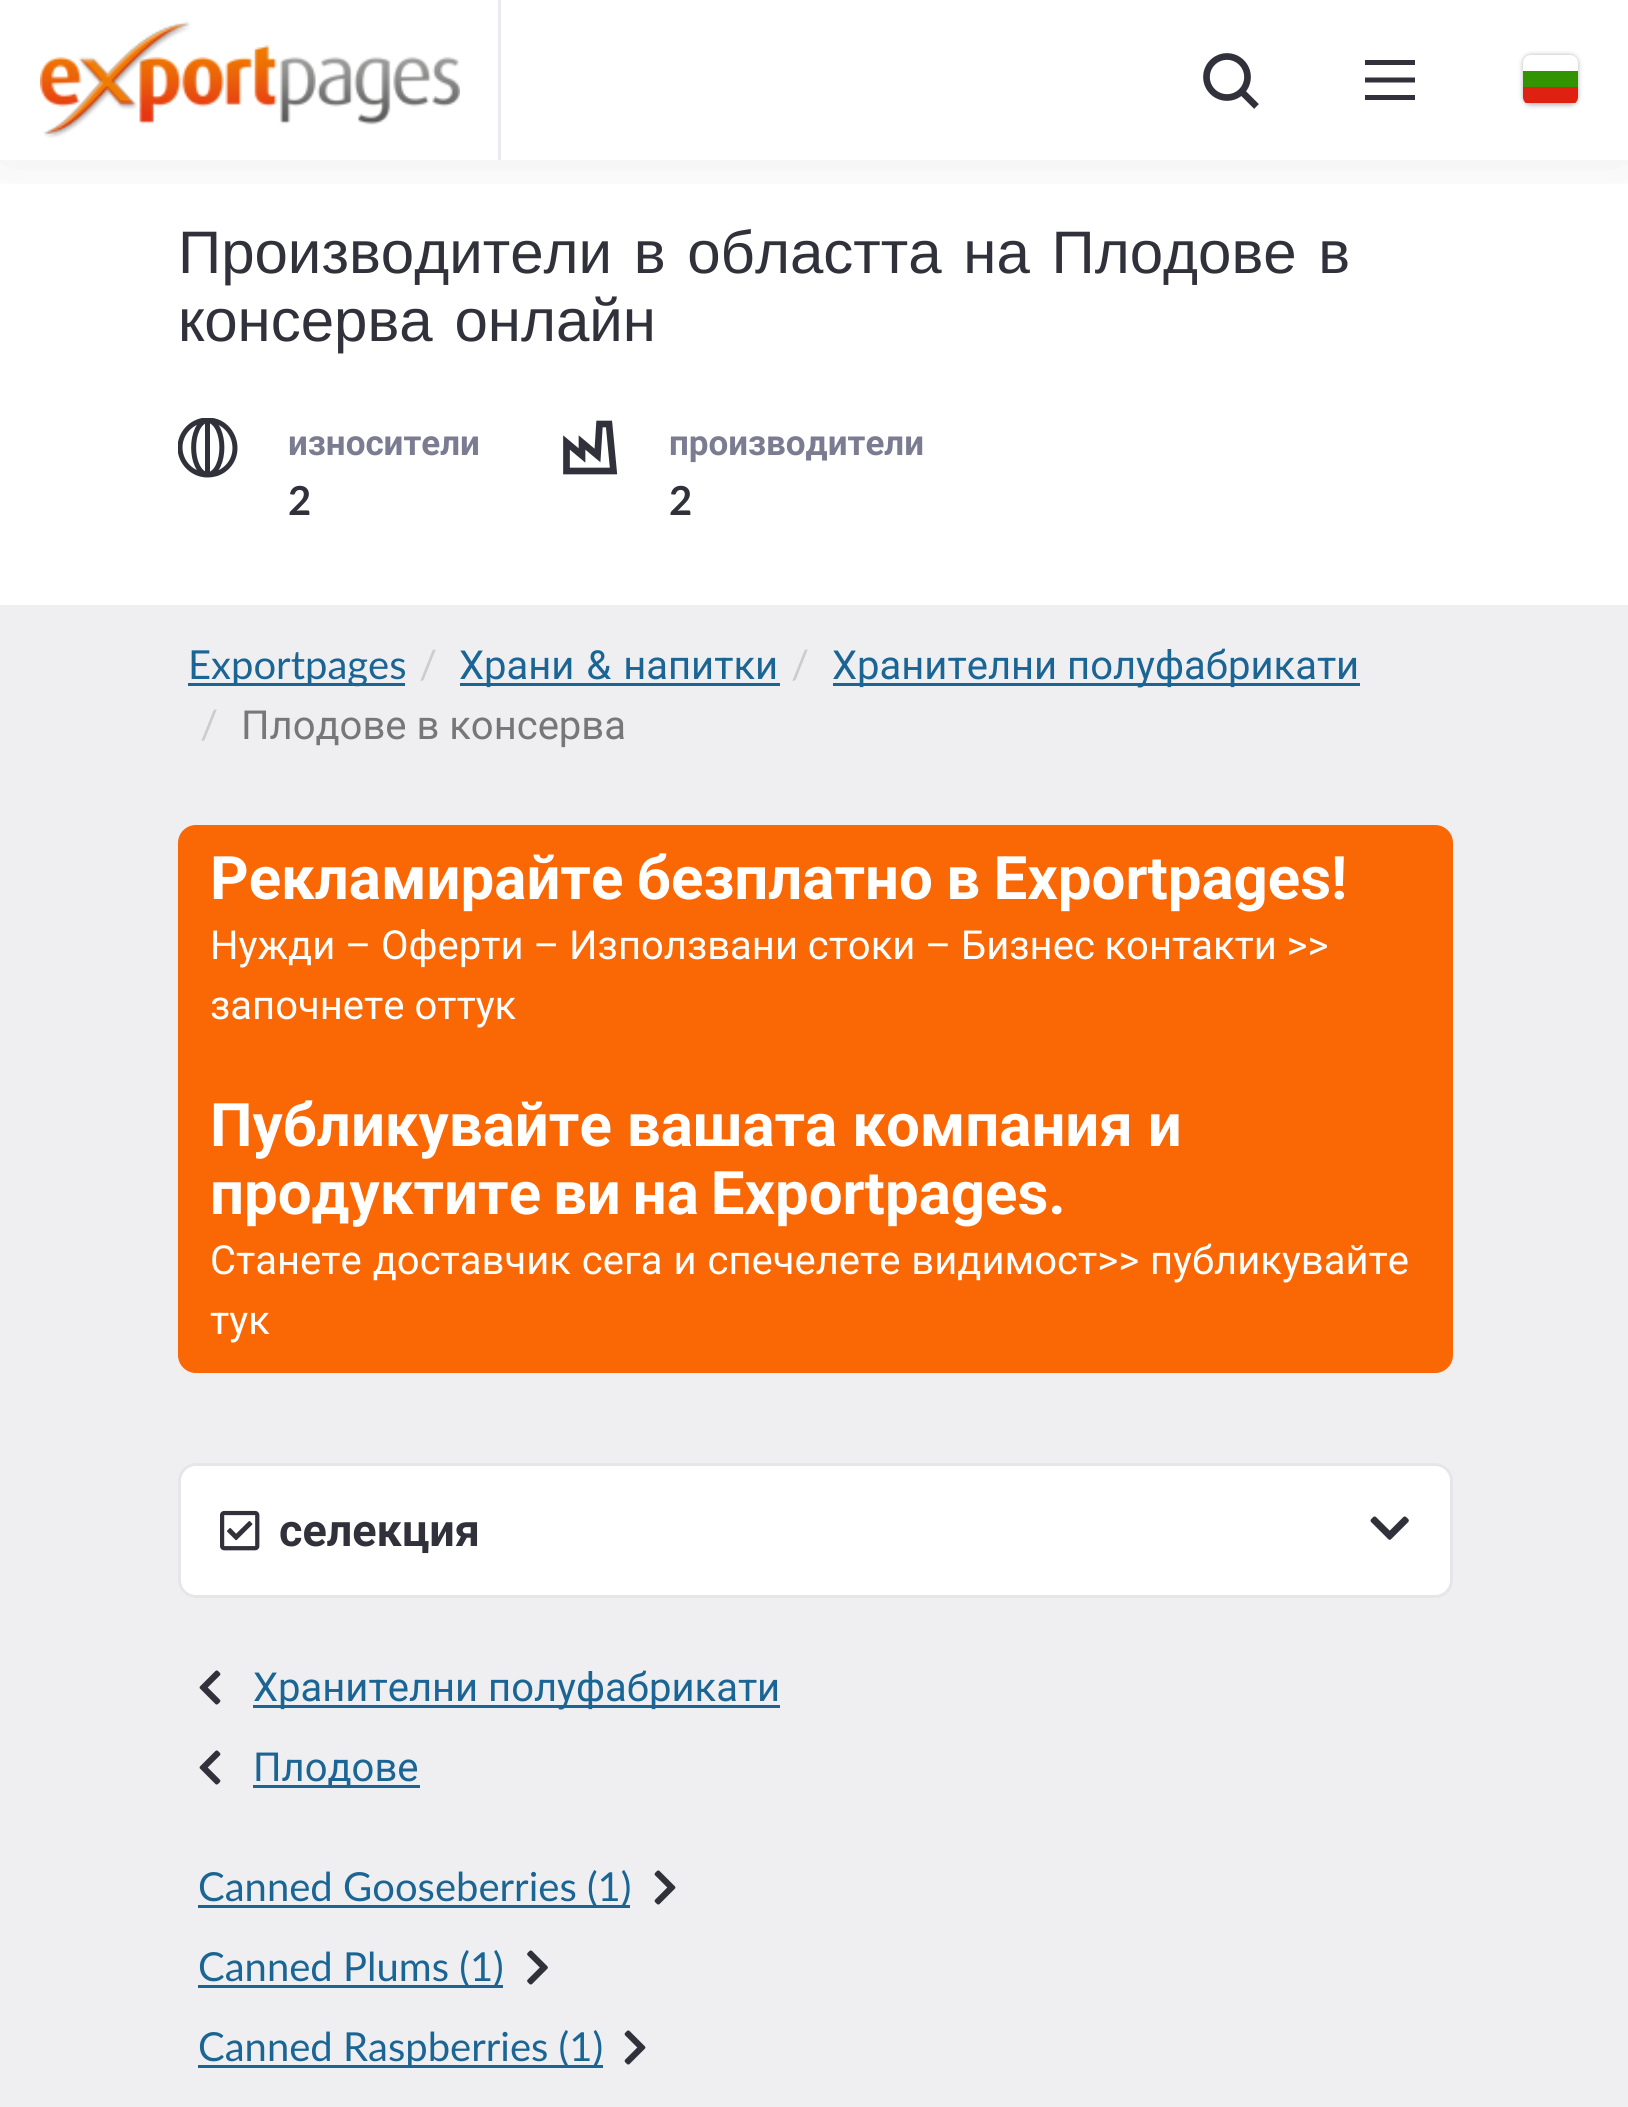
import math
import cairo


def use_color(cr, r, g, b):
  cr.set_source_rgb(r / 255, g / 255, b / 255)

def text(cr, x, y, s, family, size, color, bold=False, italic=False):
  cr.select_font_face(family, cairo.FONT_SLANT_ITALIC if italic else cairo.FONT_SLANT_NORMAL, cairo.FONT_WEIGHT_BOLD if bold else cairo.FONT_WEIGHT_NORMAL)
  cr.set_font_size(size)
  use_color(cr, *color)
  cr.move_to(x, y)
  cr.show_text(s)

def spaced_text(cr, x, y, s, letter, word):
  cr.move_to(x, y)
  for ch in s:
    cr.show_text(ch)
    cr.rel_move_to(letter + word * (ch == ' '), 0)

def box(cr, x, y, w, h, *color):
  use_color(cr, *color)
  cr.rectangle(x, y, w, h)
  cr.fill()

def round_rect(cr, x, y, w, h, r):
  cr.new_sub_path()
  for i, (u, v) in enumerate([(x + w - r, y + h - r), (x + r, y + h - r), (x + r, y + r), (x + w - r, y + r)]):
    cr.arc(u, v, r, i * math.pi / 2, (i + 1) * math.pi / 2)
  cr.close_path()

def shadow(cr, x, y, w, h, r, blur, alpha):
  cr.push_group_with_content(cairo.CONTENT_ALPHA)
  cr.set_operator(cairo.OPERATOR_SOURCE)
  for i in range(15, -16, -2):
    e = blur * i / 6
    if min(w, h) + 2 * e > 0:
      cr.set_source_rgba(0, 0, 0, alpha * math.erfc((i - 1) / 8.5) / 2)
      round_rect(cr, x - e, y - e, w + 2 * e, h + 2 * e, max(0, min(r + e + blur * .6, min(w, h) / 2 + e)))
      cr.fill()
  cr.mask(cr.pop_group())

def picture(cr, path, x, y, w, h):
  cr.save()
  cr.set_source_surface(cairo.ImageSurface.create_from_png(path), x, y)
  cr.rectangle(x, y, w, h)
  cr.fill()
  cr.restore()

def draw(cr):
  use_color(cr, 255, 255, 255)
  cr.paint()
  cr.save()
  cr.rectangle(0, 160, 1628, 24)
  cr.clip()
  use_color(cr, 0, 0, 0)
  shadow(cr, 0, -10, 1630, 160, 0, 40, 0.1)
  cr.restore()
  picture(cr, "img_01.png", 40, 21, 420, 117)
  box(cr, 498, 0, 3, 160, 235, 235, 239)
  cr.arc(1227, 77, 20.5, 0, 2 * math.pi)
  use_color(cr, 49, 49, 59)
  cr.set_line_width(6.7)
  cr.stroke()
  cr.new_path()
  cr.move_to(1242, 92)
  cr.line_to(1256.5, 106.5)
  cr.stroke()
  box(cr, 1365, 95, 50, 5, 49, 49, 59)
  cr.new_path()
  cr.move_to(1365, 80)
  cr.line_to(1415, 80)
  cr.set_line_width(5)
  cr.stroke()
  box(cr, 1365, 60, 50, 5, 49, 49, 59)
  use_color(cr, 0, 0, 0)
  shadow(cr, 1523, 55, 55, 50, 8, 2.5, 0.3)
  cr.save()
  round_rect(cr, 1523, 55, 55, 50, 8)
  cr.clip()
  box(cr, 1523, 87, 55, 16, 222, 33, 16)
  cr.restore()
  use_color(cr, 255, 255, 255)
  cr.new_path()
  cr.move_to(1531, 55)
  cr.line_to(1570, 55)
  cr.curve_to(1574.5, 55, 1578, 58.5, 1578, 63)
  cr.line_to(1578, 71)
  cr.line_to(1523, 71)
  cr.line_to(1523, 63)
  cr.curve_to(1523, 58.5, 1526.5, 55, 1531, 55)
  cr.close_path()
  cr.fill()
  box(cr, 1523, 71, 55, 16, 49, 148, 0)
  cr.save()
  cr.rectangle(178, 418, 60, 60)
  cr.clip()
  cr.new_path()
  cr.move_to(207.5, 475)
  cr.curve_to(213, 475, 218.5, 473.5, 223, 470.5)
  cr.curve_to(245.5, 455, 234, 420, 207.5, 420)
  cr.move_to(207.5, 475)
  cr.curve_to(192.5, 475, 180, 462.5, 180, 447.5)
  cr.curve_to(180, 432.5, 192.5, 420, 207.5, 420)
  cr.move_to(207.5, 475)
  cr.line_to(207.5, 420)
  cr.move_to(207.5, 475)
  cr.curve_to(189, 471, 189, 424, 207.5, 420)
  cr.move_to(208, 420)
  cr.curve_to(226.5, 424, 226.5, 471, 208, 475)
  use_color(cr, 49, 49, 59)
  cr.stroke()
  cr.restore()
  cr.new_path()
  cr.move_to(613.5, 471)
  cr.line_to(609, 424)
  cr.line_to(599.5, 424)
  cr.line_to(597.5, 455.5)
  cr.line_to(582, 442.5)
  cr.line_to(582, 455.5)
  cr.line_to(566.5, 442.5)
  cr.line_to(566.5, 471)
  cr.close_path()
  use_color(cr, 49, 49, 59)
  cr.set_line_width(6.7)
  cr.stroke()
  box(cr, 0, 605, 1628, 1502, 239, 239, 241)
  box(cr, 188, 683, 217, 3, 27, 101, 149)
  box(cr, 460, 683, 320, 3, 27, 101, 149)
  box(cr, 833, 683, 527, 3, 27, 101, 149)
  use_color(cr, 250, 103, 5)
  round_rect(cr, 179.5, 826.5, 1272, 545, 16.5)
  cr.fill_preserve()
  cr.set_line_width(3)
  cr.stroke()
  use_color(cr, 255, 255, 255)
  round_rect(cr, 178, 1463, 1275, 135, 18)
  cr.fill()
  round_rect(cr, 179.5, 1464.5, 1272, 132, 16.5)
  cr.set_source_rgba(0.192, 0.192, 0.231, 0.12)
  cr.stroke()
  picture(cr, "img_02.png", 220, 1510, 40, 41)
  picture(cr, "img_03.png", 1370, 1516, 39, 24)
  picture(cr, "img_04.png", 199, 1670, 22, 35)
  box(cr, 253, 1705, 527, 3, 27, 101, 149)
  picture(cr, "img_04.png", 199, 1750, 22, 35)
  box(cr, 253, 1785, 167, 3, 27, 101, 149)
  box(cr, 198, 1905, 432, 3, 27, 101, 149)
  picture(cr, "img_05.png", 654, 1870, 22, 35)
  box(cr, 198, 1985, 305, 3, 27, 101, 149)
  picture(cr, "img_06.png", 527, 1950, 21, 35)
  box(cr, 198, 2065, 405, 3, 27, 101, 149)
  picture(cr, "img_05.png", 624, 2030, 22, 35)
  cr.select_font_face("Liberation Sans")
  cr.set_font_size(60)
  use_color(cr, 49, 49, 59)
  spaced_text(cr, 178, 273, "Производители в областта на Плодове в", 0, 5)
  spaced_text(cr, 178, 341, "консерва онлайн", 0, 5)
  text(cr, 288, 455, "износители", "Roboto", 35, (123, 123, 146), bold=True)
  text(cr, 288, 515, "2", "Lato", 40, (49, 49, 59), bold=True)
  text(cr, 669, 455, "производители", "Roboto", 35, (123, 123, 146), bold=True)
  text(cr, 669, 515, "2", "Lato", 40, (49, 49, 59), bold=True)
  text(cr, 188, 679, "Exportpages", "Lato", 40, (27, 101, 149))
  text(cr, 419, 679, "/", "Lato", 40, (204, 204, 204))
  cr.select_font_face("Roboto")
  use_color(cr, 27, 101, 149)
  spaced_text(cr, 459, 679, "Храни & напитки", 0, 2)
  text(cr, 791, 679, "/", "Lato", 40, (204, 204, 204))
  text(cr, 832, 679, "Хранителни полуфабрикати", "Roboto", 40, (27, 101, 149))
  text(cr, 200, 739, "/", "Lato", 40, (204, 204, 204))
  text(cr, 241, 739, "Плодове в консерва", "Roboto", 40, (119, 119, 119))
  cr.select_font_face("Roboto", cairo.FONT_SLANT_NORMAL, cairo.FONT_WEIGHT_BOLD)
  cr.set_font_size(60)
  use_color(cr, 255, 255, 255)
  spaced_text(cr, 210, 899, "Рекламирайте безплатно в Exportpages!", 0, -1.5)
  cr.select_font_face("Roboto")
  cr.set_font_size(40)
  spaced_text(cr, 210, 959, "Нужди – Оферти – Използвани стоки – Бизнес контакти >>", 0, -0.25)
  text(cr, 210, 1019, "започнете оттук", "Roboto", 40, (255, 255, 255))
  text(cr, 210, 1146, "Публикувайте вашата компания и", "Roboto", 60, (255, 255, 255), bold=True)
  spaced_text(cr, 210, 1214, "продуктите ви на Exportpages.", 0, -3)
  cr.select_font_face("Roboto")
  cr.set_font_size(40)
  spaced_text(cr, 210, 1274, "Станете доставчик сега и спечелете видимост>> публикувайте", 0, 1)
  text(cr, 210, 1334, "тук", "Roboto", 40, (255, 255, 255))
  text(cr, 279, 1546, "селекция", "Roboto", 45, (49, 49, 59), bold=True)
  text(cr, 253, 1701, "Хранителни полуфабрикати", "Roboto", 40, (27, 101, 149))
  text(cr, 253, 1781, "Плодове", "Roboto", 40, (27, 101, 149))
  text(cr, 198, 1901, "Canned Gooseberries (1)", "Lato", 40, (27, 101, 149))
  text(cr, 198, 1981, "Canned Plums (1)", "Lato", 40, (27, 101, 149))
  text(cr, 198, 2061, "Canned Raspberries (1)", "Lato", 40, (27, 101, 149))


surface = cairo.ImageSurface(cairo.FORMAT_RGB24, 1628, 2107)
cr = cairo.Context(surface)
options = cairo.FontOptions()
options.set_hint_metrics(cairo.HINT_METRICS_OFF)
options.set_hint_style(cairo.HINT_STYLE_NONE)
cr.set_font_options(options)
cr.set_miter_limit(4)
draw(cr)
surface.write_to_png("out.png")
